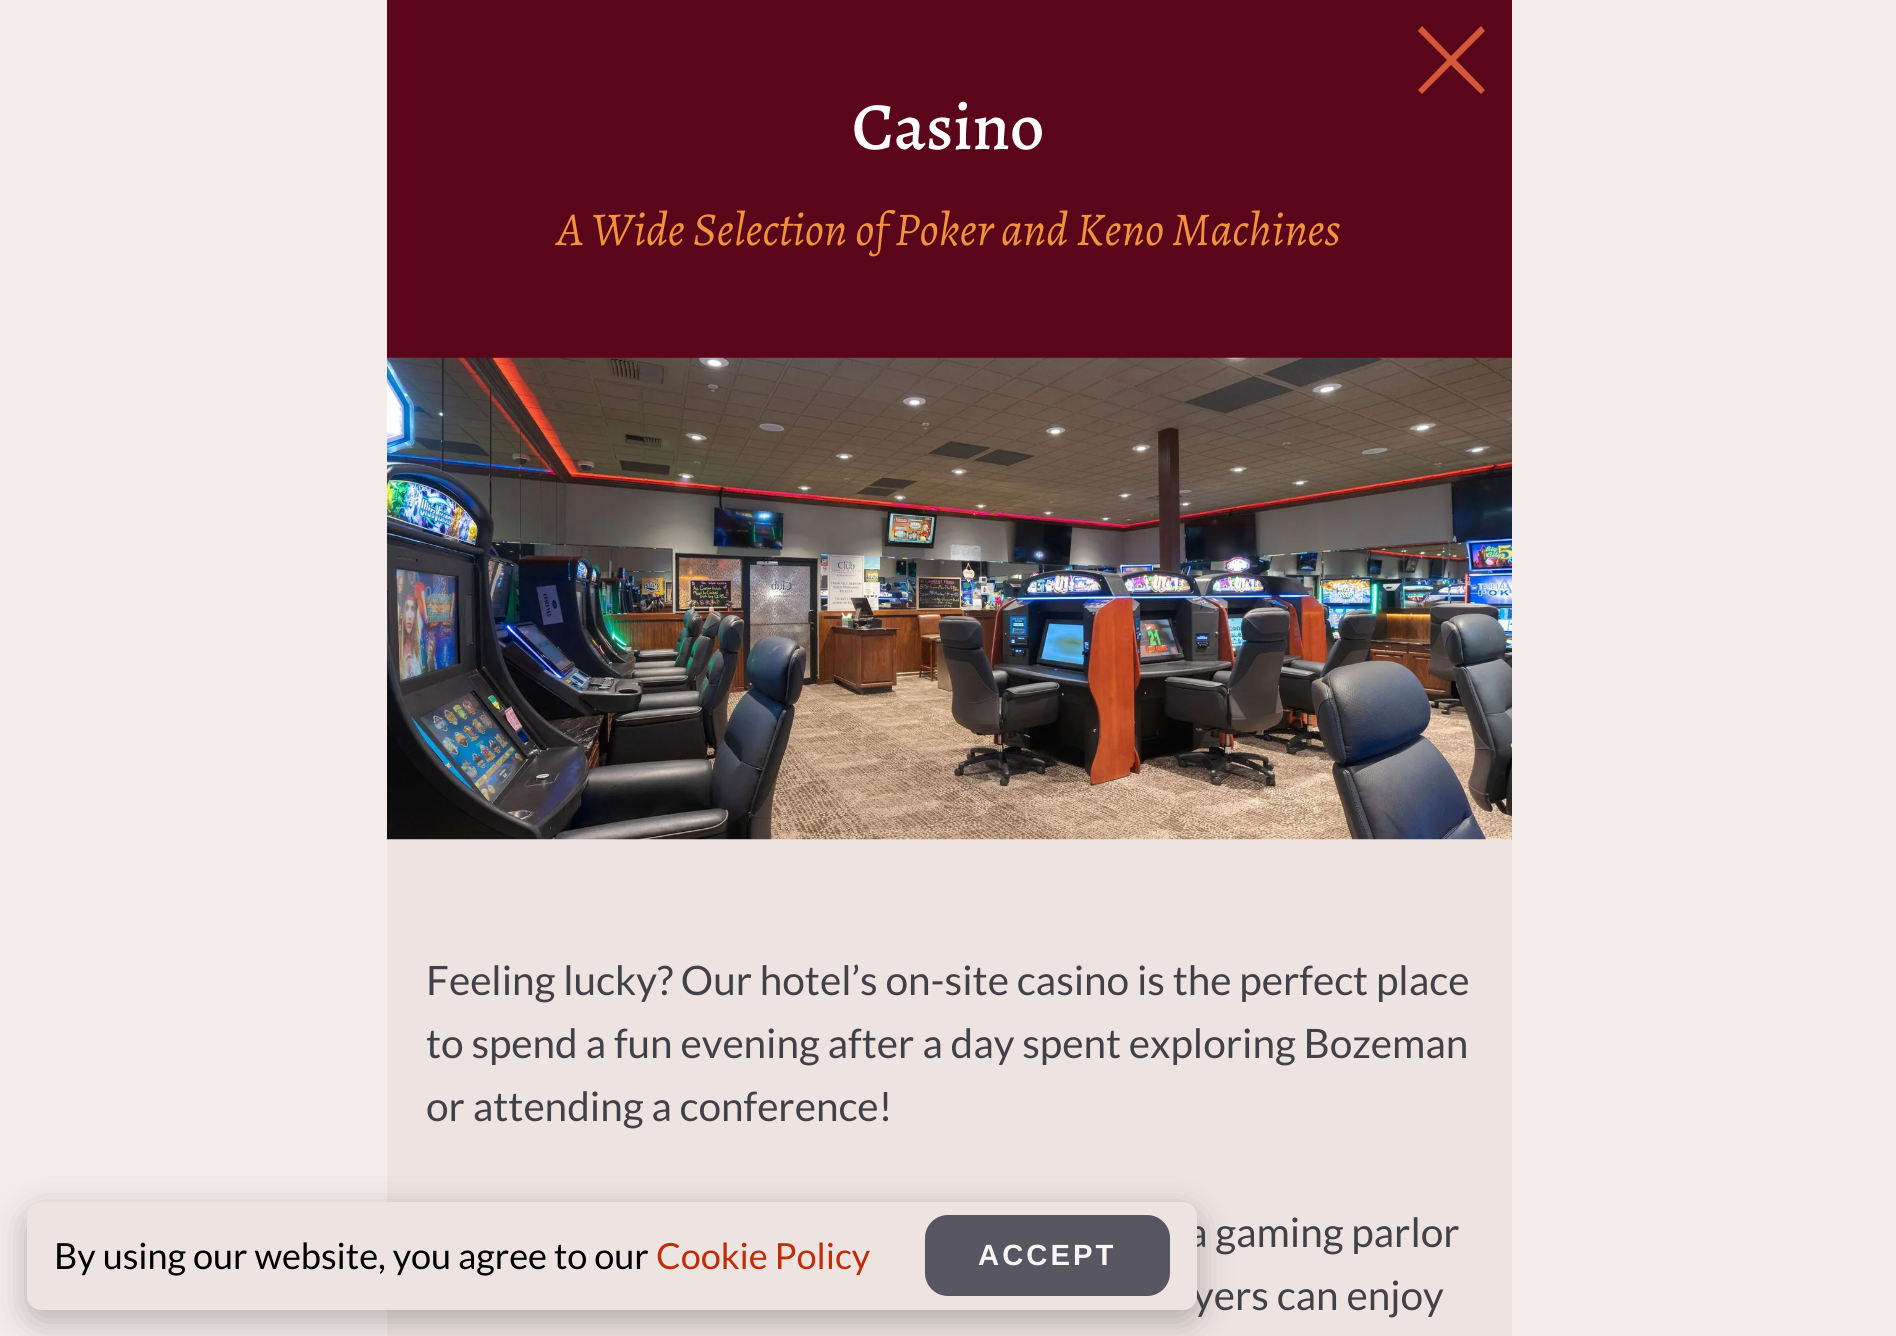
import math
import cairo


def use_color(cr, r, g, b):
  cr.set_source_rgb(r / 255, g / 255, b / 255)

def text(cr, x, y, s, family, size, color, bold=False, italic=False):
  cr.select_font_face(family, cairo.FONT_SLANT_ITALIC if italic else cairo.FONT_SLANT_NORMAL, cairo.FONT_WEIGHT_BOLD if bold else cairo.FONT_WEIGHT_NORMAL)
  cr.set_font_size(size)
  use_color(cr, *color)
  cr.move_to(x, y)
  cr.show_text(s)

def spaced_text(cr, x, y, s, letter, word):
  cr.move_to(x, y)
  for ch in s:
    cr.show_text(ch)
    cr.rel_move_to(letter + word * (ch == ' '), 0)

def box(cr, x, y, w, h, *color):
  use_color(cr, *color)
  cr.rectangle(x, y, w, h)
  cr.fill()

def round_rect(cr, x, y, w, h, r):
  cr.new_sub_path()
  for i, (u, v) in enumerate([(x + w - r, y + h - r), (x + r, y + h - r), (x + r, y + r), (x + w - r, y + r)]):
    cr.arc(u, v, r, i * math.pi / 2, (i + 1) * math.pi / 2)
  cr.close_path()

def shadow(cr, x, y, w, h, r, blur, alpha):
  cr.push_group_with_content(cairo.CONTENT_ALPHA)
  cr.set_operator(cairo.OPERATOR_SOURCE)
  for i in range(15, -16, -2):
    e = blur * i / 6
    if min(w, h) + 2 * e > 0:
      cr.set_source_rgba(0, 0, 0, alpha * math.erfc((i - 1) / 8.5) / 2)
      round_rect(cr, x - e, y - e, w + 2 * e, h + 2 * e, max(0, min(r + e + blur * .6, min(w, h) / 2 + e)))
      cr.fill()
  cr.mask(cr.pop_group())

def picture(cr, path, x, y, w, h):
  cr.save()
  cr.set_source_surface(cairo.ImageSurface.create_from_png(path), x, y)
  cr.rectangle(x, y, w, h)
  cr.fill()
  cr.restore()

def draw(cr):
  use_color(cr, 244, 236, 235)
  cr.paint()
  box(cr, 387, 0, 1125, 358, 90, 5, 25)
  use_color(cr, 211, 87, 56)
  cr.new_path()
  cr.move_to(1485, 31)
  cr.line_to(1456, 60)
  cr.line_to(1485, 90)
  cr.line_to(1481, 94)
  cr.line_to(1451, 65)
  cr.line_to(1422, 94)
  cr.line_to(1418, 90)
  cr.line_to(1447, 60)
  cr.line_to(1418, 31)
  cr.line_to(1422, 26)
  cr.line_to(1451, 56)
  cr.line_to(1481, 26)
  cr.close_path()
  cr.fill()
  box(cr, 387, 839, 1125, 497, 237, 227, 224)
  picture(cr, "img_01.png", 387, 357, 1125, 483)
  use_color(cr, 0, 0, 0)
  shadow(cr, 27, 1213, 1170, 108, 14, 17, 0.25)
  text(cr, 852, 149, "Casino", "Alegreya Medium", 67.5, (255, 255, 255))
  text(cr, 557, 245, "A Wide Selection of Poker and Keno Machines", "Alegreya", 47.25, (240, 147, 58), italic=True)
  text(cr, 426, 995, "Feeling lucky? Our hotel’s on-site casino is the perfect place", "Lato", 40.5, (66, 65, 72))
  text(cr, 426, 1058, "to spend a fun evening after a day spent exploring Bozeman", "Lato", 40.5, (66, 65, 72))
  text(cr, 426, 1121, "or attending a conference!", "Lato", 40.5, (66, 65, 72))
  text(cr, 1187, 1247, "a gaming parlor", "Lato", 40.5, (66, 65, 72))
  text(cr, 1193, 1310, "yers can enjoy", "Lato", 40.5, (66, 65, 72))
  use_color(cr, 237, 227, 224)
  round_rect(cr, 27, 1202, 1170, 108, 14)
  cr.fill()
  text(cr, 54, 1269, "By using our website, you agree to our", "Lato", 36, (0, 0, 0))
  text(cr, 656, 1269, "Cookie Policy", "Lato", 36, (193, 43, 6))
  use_color(cr, 88, 86, 97)
  round_rect(cr, 925, 1215, 245, 81, 23)
  cr.fill()
  cr.select_font_face("Liberation Sans", cairo.FONT_SLANT_NORMAL, cairo.FONT_WEIGHT_BOLD)
  cr.set_font_size(29.25)
  use_color(cr, 250, 246, 245)
  spaced_text(cr, 978, 1265, "ACCEPT", 3, 0)


surface = cairo.ImageSurface(cairo.FORMAT_RGB24, 1896, 1336)
cr = cairo.Context(surface)
options = cairo.FontOptions()
options.set_hint_metrics(cairo.HINT_METRICS_OFF)
options.set_hint_style(cairo.HINT_STYLE_NONE)
cr.set_font_options(options)
cr.set_miter_limit(4)
draw(cr)
surface.write_to_png("out.png")
